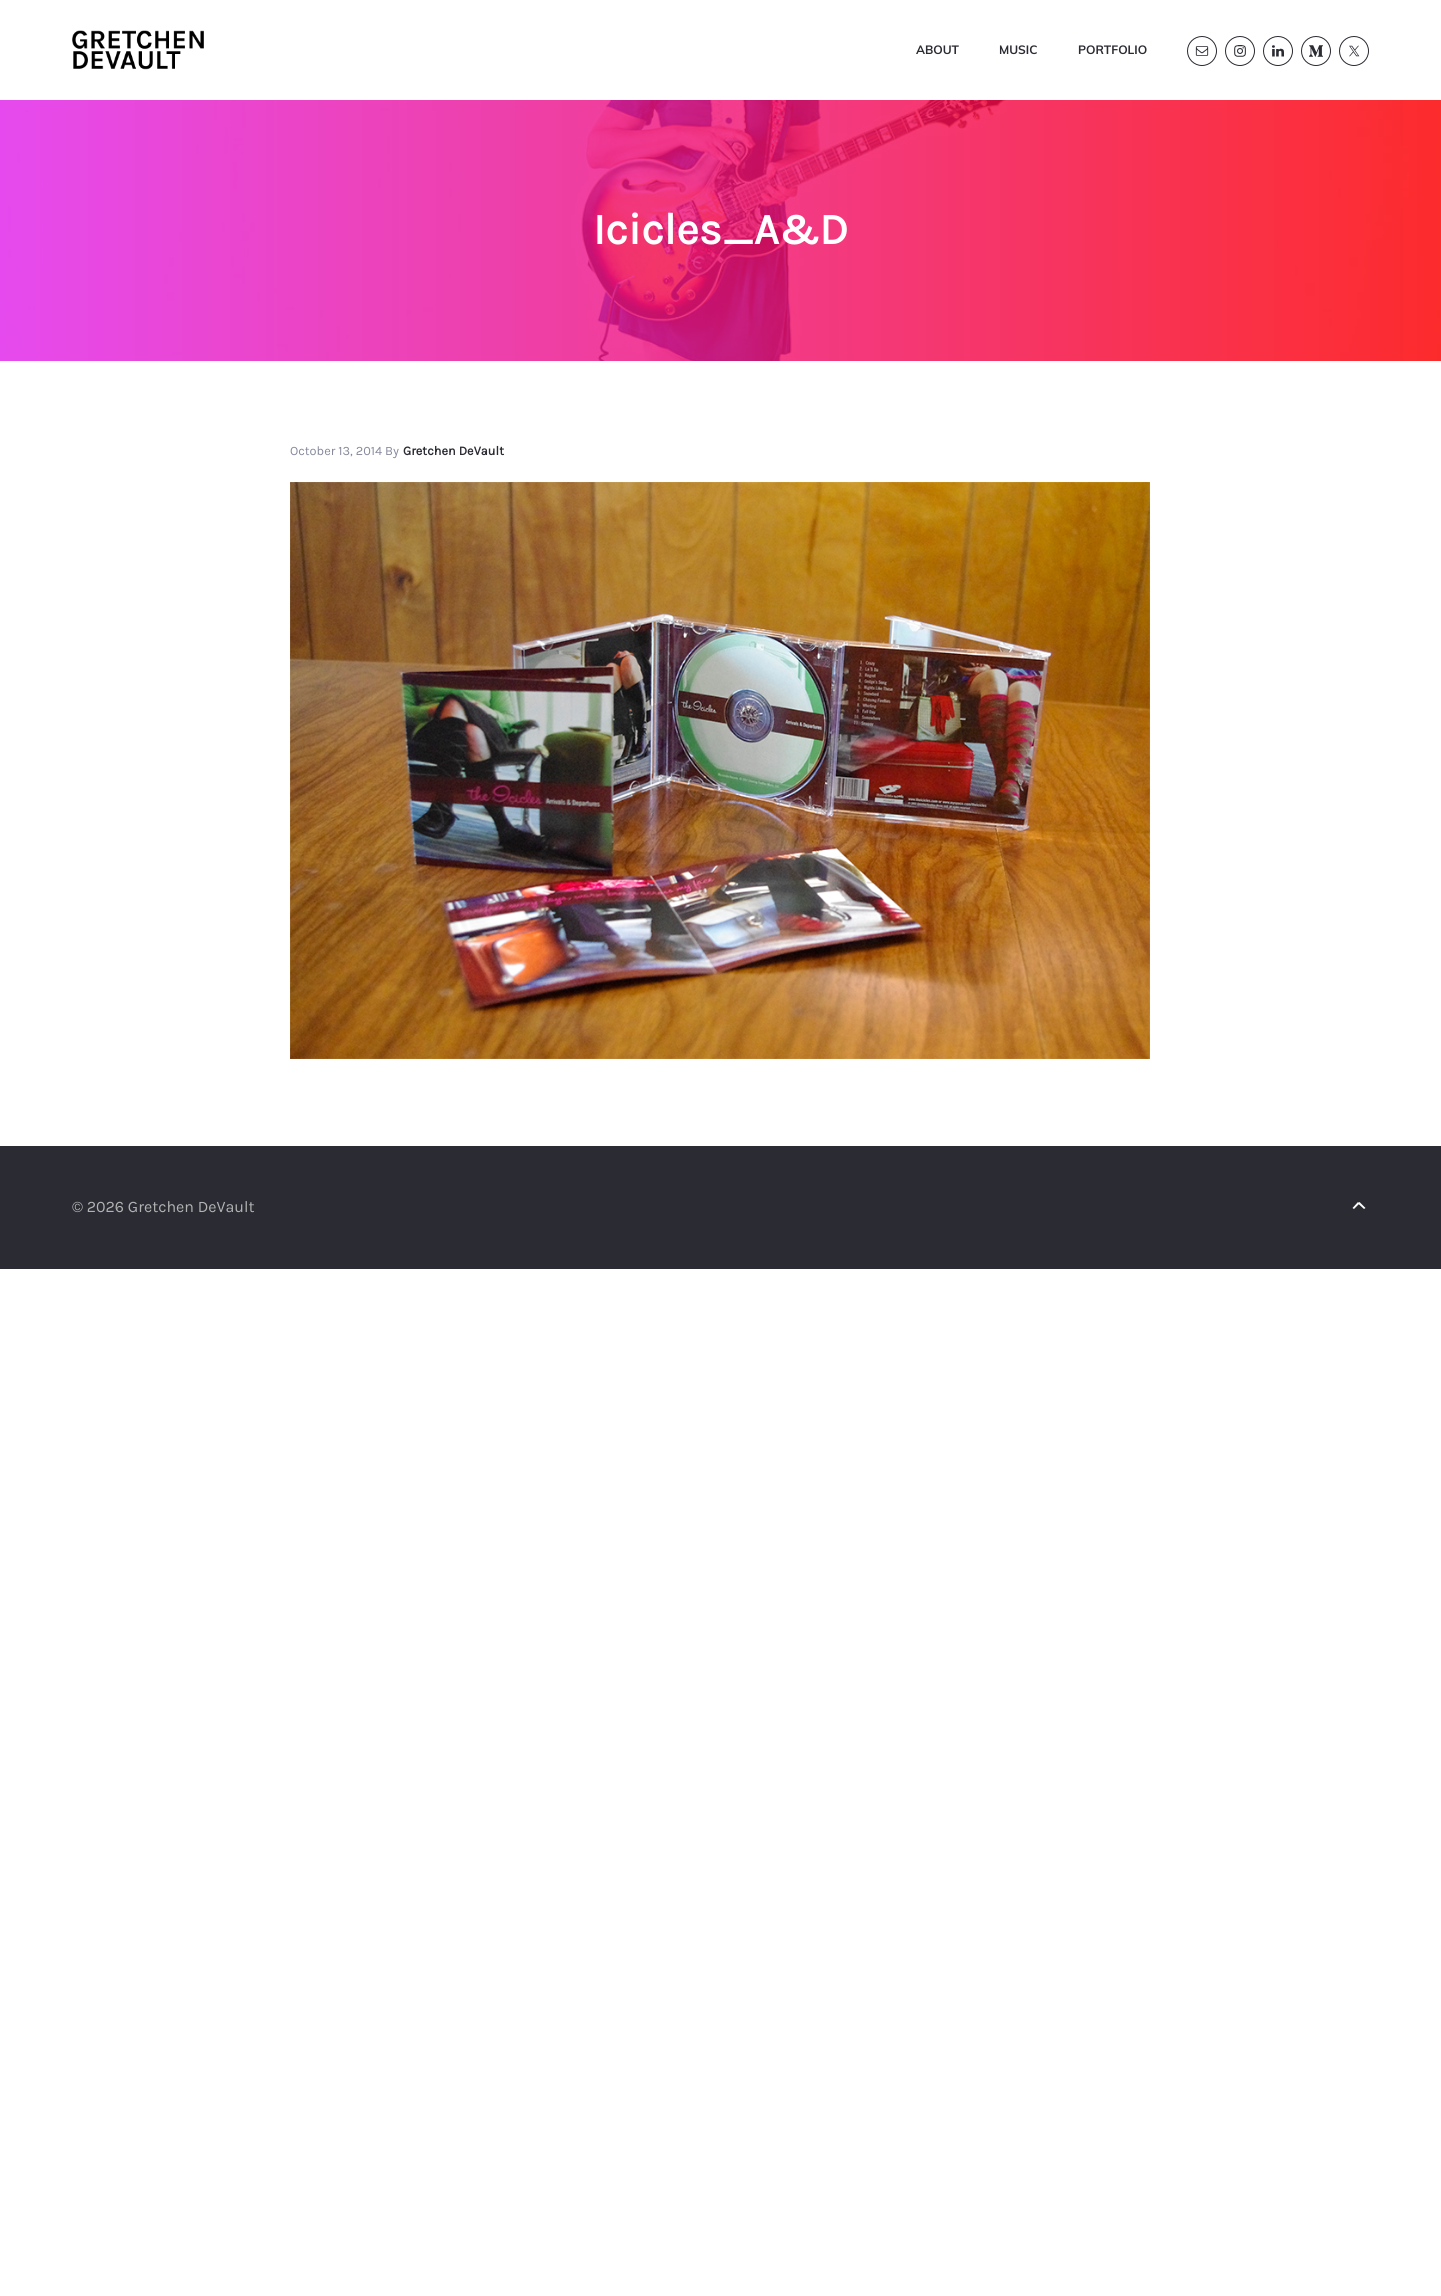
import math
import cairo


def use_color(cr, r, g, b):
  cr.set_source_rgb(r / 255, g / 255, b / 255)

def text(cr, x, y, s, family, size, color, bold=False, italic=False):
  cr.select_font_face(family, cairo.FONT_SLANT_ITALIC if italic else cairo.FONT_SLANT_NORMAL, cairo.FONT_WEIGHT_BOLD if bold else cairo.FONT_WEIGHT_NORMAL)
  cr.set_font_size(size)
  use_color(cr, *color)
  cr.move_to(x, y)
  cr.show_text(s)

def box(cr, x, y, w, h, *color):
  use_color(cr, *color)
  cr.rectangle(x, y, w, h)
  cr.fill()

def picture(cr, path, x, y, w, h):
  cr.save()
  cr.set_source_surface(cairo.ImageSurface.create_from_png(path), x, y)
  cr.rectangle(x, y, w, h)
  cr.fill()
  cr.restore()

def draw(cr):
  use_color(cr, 255, 255, 255)
  cr.paint()
  picture(cr, "img_01.png", 72, 30, 132, 40)
  cr.arc(1202, 51, 14.5, 0, 2 * math.pi)
  use_color(cr, 42, 43, 51)
  cr.set_line_width(1)
  cr.stroke()
  picture(cr, "img_02.png", 1195, 46, 14, 10)
  cr.arc(1240, 51, 14.5, 0, 2 * math.pi)
  cr.stroke()
  picture(cr, "img_03.png", 1234, 45, 12, 12)
  cr.arc(1278, 51, 14.5, 0, 2 * math.pi)
  cr.stroke()
  picture(cr, "img_04.png", 1272, 45, 12, 12)
  cr.arc(1316, 51, 14.5, 0, 2 * math.pi)
  cr.stroke()
  picture(cr, "img_05.png", 1309, 45, 14, 12)
  cr.arc(1354, 51, 14.5, 0, 2 * math.pi)
  cr.stroke()
  picture(cr, "img_06.png", 1349, 45, 11, 12)
  picture(cr, "img_07.png", 0, 100, 1441, 261)
  picture(cr, "img_08.png", 290, 482, 860, 577)
  box(cr, 0, 1146, 1441, 123, 42, 43, 51)
  use_color(cr, 255, 255, 255)
  cr.new_path()
  cr.move_to(1352.5, 1208)
  cr.line_to(1358, 1202)
  cr.line_to(1359.5, 1203.5)
  cr.line_to(1354, 1209)
  cr.close_path()
  cr.fill()
  cr.new_path()
  cr.move_to(1358, 1203.5)
  cr.line_to(1359.5, 1202)
  cr.line_to(1365.5, 1208)
  cr.line_to(1364, 1209)
  cr.close_path()
  cr.fill()
  text(cr, 916, 54, "ABOUT", "Muli", 12, (42, 43, 51), bold=True)
  text(cr, 999, 54, "MUSIC", "Muli", 12, (42, 43, 51), bold=True)
  text(cr, 1078, 54, "PORTFOLIO", "Muli", 12, (42, 43, 51), bold=True)
  text(cr, 593, 244, "Icicles_A&D", "Karla", 44, (255, 255, 255), bold=True)
  text(cr, 290, 455, "October 13, 2014 By", "Karla", 12.75, (133, 136, 155))
  text(cr, 403, 455, "Gretchen DeVault", "Karla", 12.75, (42, 43, 51), bold=True)
  text(cr, 72, 1212, "© 2026 Gretchen DeVault", "Karla", 16, (179, 179, 179))


surface = cairo.ImageSurface(cairo.FORMAT_RGB24, 1441, 2296)
cr = cairo.Context(surface)
options = cairo.FontOptions()
options.set_hint_metrics(cairo.HINT_METRICS_OFF)
options.set_hint_style(cairo.HINT_STYLE_NONE)
cr.set_font_options(options)
cr.set_miter_limit(4)
draw(cr)
surface.write_to_png("out.png")
